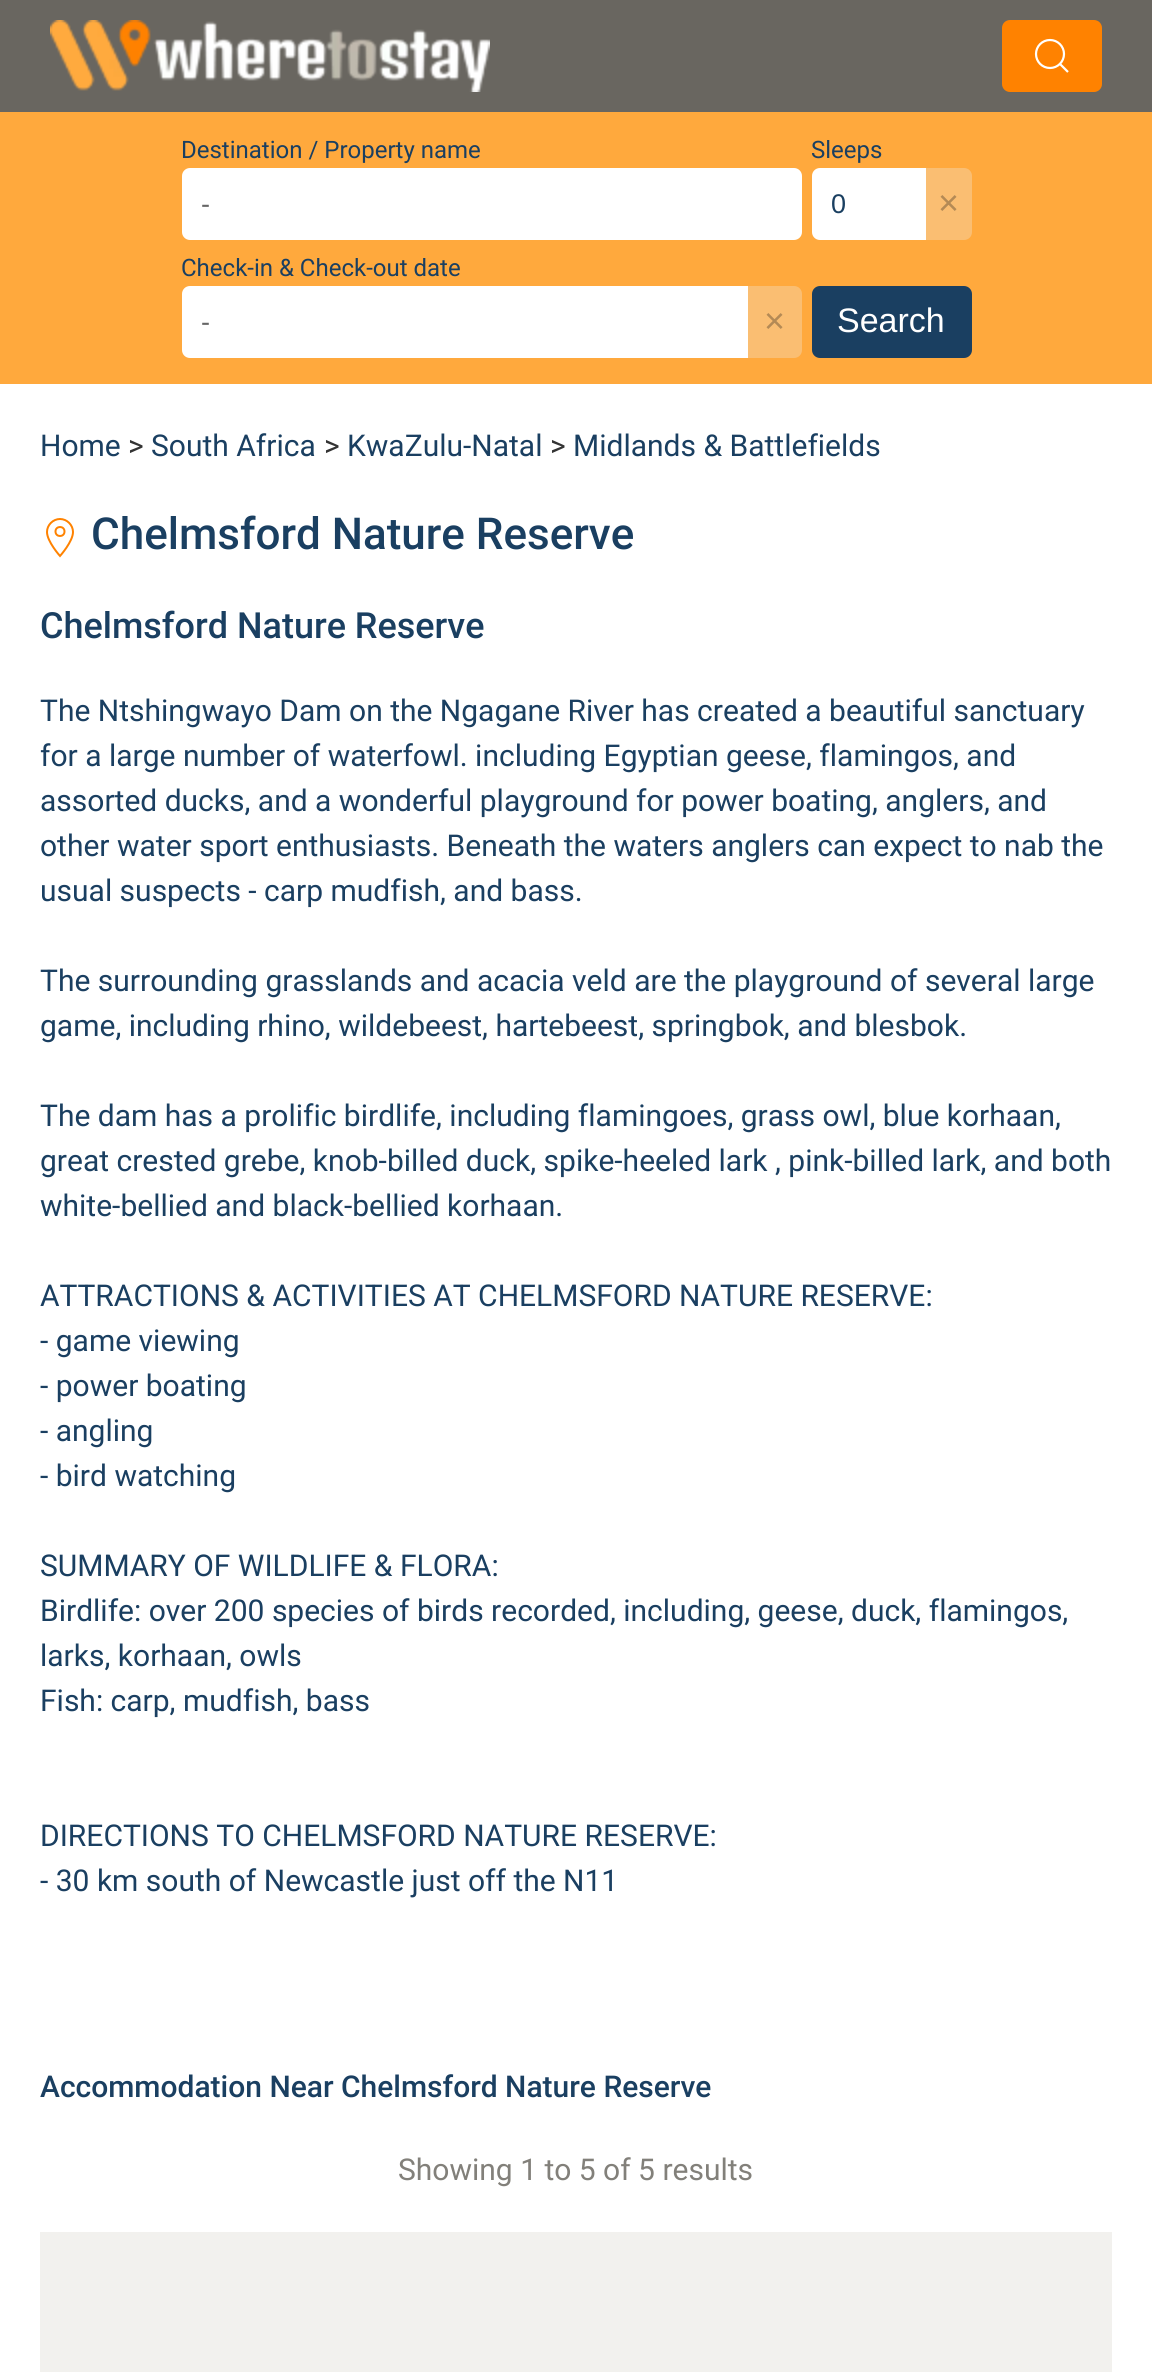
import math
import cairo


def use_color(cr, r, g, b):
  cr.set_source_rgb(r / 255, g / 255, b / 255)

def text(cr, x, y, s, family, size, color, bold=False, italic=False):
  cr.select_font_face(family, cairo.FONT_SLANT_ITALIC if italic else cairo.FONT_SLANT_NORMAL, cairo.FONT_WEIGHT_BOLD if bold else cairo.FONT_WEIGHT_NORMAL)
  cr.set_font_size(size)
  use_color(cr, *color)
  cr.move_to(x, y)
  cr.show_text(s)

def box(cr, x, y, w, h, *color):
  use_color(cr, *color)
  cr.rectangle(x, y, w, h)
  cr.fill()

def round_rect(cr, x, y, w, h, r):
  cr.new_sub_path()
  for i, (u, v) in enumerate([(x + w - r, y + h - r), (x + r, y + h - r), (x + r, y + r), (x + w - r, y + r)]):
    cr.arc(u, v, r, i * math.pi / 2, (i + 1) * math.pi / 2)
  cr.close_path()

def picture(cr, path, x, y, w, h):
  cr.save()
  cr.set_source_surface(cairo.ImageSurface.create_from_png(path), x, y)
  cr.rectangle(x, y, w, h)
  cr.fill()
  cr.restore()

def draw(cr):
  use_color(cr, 255, 169, 61)
  cr.paint()
  box(cr, 0, 0, 1152, 112, 105, 102, 96)
  picture(cr, "img_01.png", 50, 20, 440, 72)
  use_color(cr, 255, 130, 0)
  round_rect(cr, 1002, 20, 100, 72, 8)
  cr.fill()
  cr.arc(1050, 54, 14, 0, 2 * math.pi)
  use_color(cr, 255, 255, 255)
  cr.set_line_width(2.2)
  cr.stroke()
  cr.new_path()
  cr.move_to(1060, 64)
  cr.line_to(1068, 72)
  cr.close_path()
  cr.stroke()
  round_rect(cr, 182, 168, 620, 72, 8)
  cr.fill()
  cr.new_path()
  cr.move_to(820, 168)
  cr.line_to(926, 168)
  cr.line_to(926, 240)
  cr.line_to(820, 240)
  cr.curve_to(815.5, 240, 812, 236.5, 812, 232)
  cr.line_to(812, 176)
  cr.curve_to(812, 171.5, 815.5, 168, 820, 168)
  cr.close_path()
  cr.fill()
  use_color(cr, 250, 190, 114)
  cr.new_path()
  cr.move_to(926, 168)
  cr.line_to(964, 168)
  cr.curve_to(968.5, 168, 972, 171.5, 972, 176)
  cr.line_to(972, 232)
  cr.curve_to(972, 236.5, 968.5, 240, 964, 240)
  cr.line_to(926, 240)
  cr.close_path()
  cr.fill()
  use_color(cr, 255, 255, 255)
  cr.new_path()
  cr.move_to(190, 286)
  cr.line_to(748, 286)
  cr.line_to(748, 358)
  cr.line_to(190, 358)
  cr.curve_to(185.5, 358, 182, 354.5, 182, 350)
  cr.line_to(182, 294)
  cr.curve_to(182, 289.5, 185.5, 286, 190, 286)
  cr.close_path()
  cr.fill()
  use_color(cr, 250, 190, 114)
  cr.new_path()
  cr.move_to(748, 286)
  cr.line_to(794, 286)
  cr.curve_to(798.5, 286, 802, 289.5, 802, 294)
  cr.line_to(802, 350)
  cr.curve_to(802, 354.5, 798.5, 358, 794, 358)
  cr.line_to(748, 358)
  cr.close_path()
  cr.fill()
  use_color(cr, 26, 63, 97)
  round_rect(cr, 812, 286, 160, 72, 8)
  cr.fill()
  box(cr, 0, 384, 1152, 1988, 255, 255, 255)
  cr.new_path()
  cr.move_to(60, 519)
  cr.curve_to(53, 519, 47, 525, 47, 532)
  cr.curve_to(47, 541.5, 60, 556, 60, 556)
  cr.curve_to(60, 556, 73, 541.5, 73, 532)
  cr.curve_to(73, 525, 67, 519, 60, 519)
  cr.close_path()
  use_color(cr, 255, 130, 0)
  cr.set_line_width(2)
  cr.stroke()
  cr.arc(60, 531.5, 4.5, 0, 2 * math.pi)
  cr.stroke()
  box(cr, 40, 2232, 1072, 140, 242, 241, 238)
  text(cr, 181, 158, "Destination / Property name", "Roboto", 24, (26, 63, 97))
  text(cr, 201, 213, "-", "Liberation Sans", 27, (102, 102, 102))
  text(cr, 811, 158, "Sleeps", "Roboto", 24, (26, 63, 97))
  text(cr, 831, 213, "0", "Liberation Sans", 27, (26, 63, 97))
  text(cr, 938, 215, "×", "Liberation Sans", 36, (180, 138, 85))
  text(cr, 181, 276, "Check-in & Check-out date", "Roboto", 24, (26, 63, 97))
  text(cr, 201, 331, "-", "Liberation Sans", 27, (102, 102, 102))
  text(cr, 764, 333, "×", "Liberation Sans", 36, (180, 138, 85))
  text(cr, 837, 332, "Search", "Liberation Sans", 34, (255, 255, 255))
  text(cr, 40, 456, "Home", "Roboto", 30, (26, 63, 97))
  text(cr, 128, 456, ">", "Roboto", 30, (51, 51, 51))
  text(cr, 151, 456, "South Africa", "Roboto", 30, (26, 63, 97))
  text(cr, 324, 456, ">", "Roboto", 30, (51, 51, 51))
  text(cr, 347, 456, "KwaZulu-Natal", "Roboto", 30, (26, 63, 97))
  text(cr, 550, 456, ">", "Roboto", 30, (51, 51, 51))
  text(cr, 573, 456, "Midlands & Battlefields", "Roboto", 30, (26, 63, 97))
  text(cr, 91, 549, "Chelmsford Nature Reserve", "Roboto Medium", 44, (26, 63, 97))
  text(cr, 40, 638, "Chelmsford Nature Reserve", "Roboto Medium", 36, (26, 63, 97))
  text(cr, 40, 721, "The Ntshingwayo Dam on the Ngagane River has created a beautiful sanctuary", "Roboto", 30, (26, 63, 97))
  text(cr, 40, 766, "for a large number of waterfowl. including Egyptian geese, flamingos, and", "Roboto", 30, (26, 63, 97))
  text(cr, 40, 811, "assorted ducks, and a wonderful playground for power boating, anglers, and", "Roboto", 30, (26, 63, 97))
  text(cr, 40, 856, "other water sport enthusiasts. Beneath the waters anglers can expect to nab the", "Roboto", 30, (26, 63, 97))
  text(cr, 40, 901, "usual suspects - carp mudfish, and bass.", "Roboto", 30, (26, 63, 97))
  text(cr, 40, 991, "The surrounding grasslands and acacia veld are the playground of several large", "Roboto", 30, (26, 63, 97))
  text(cr, 40, 1036, "game, including rhino, wildebeest, hartebeest, springbok, and blesbok.", "Roboto", 30, (26, 63, 97))
  text(cr, 40, 1126, "The dam has a prolific birdlife, including flamingoes, grass owl, blue korhaan,", "Roboto", 30, (26, 63, 97))
  text(cr, 40, 1171, "great crested grebe, knob-billed duck, spike-heeled lark , pink-billed lark, and both", "Roboto", 30, (26, 63, 97))
  text(cr, 40, 1216, "white-bellied and black-bellied korhaan.", "Roboto", 30, (26, 63, 97))
  text(cr, 40, 1306, "ATTRACTIONS & ACTIVITIES AT CHELMSFORD NATURE RESERVE:", "Roboto", 30, (26, 63, 97))
  text(cr, 40, 1351, "- game viewing", "Roboto", 30, (26, 63, 97))
  text(cr, 40, 1396, "- power boating", "Roboto", 30, (26, 63, 97))
  text(cr, 40, 1441, "- angling", "Roboto", 30, (26, 63, 97))
  text(cr, 40, 1486, "- bird watching", "Roboto", 30, (26, 63, 97))
  text(cr, 40, 1576, "SUMMARY OF WILDLIFE & FLORA:", "Roboto", 30, (26, 63, 97))
  text(cr, 40, 1621, "Birdlife: over 200 species of birds recorded, including, geese, duck, flamingos,", "Roboto", 30, (26, 63, 97))
  text(cr, 40, 1666, "larks, korhaan, owls", "Roboto", 30, (26, 63, 97))
  text(cr, 40, 1711, "Fish: carp, mudfish, bass", "Roboto", 30, (26, 63, 97))
  text(cr, 40, 1846, "DIRECTIONS TO CHELMSFORD NATURE RESERVE:", "Roboto", 30, (26, 63, 97))
  text(cr, 40, 1891, "- 30 km south of Newcastle just off the N11", "Roboto", 30, (26, 63, 97))
  text(cr, 40, 2097, "Accommodation Near Chelmsford Nature Reserve", "Roboto Medium", 30, (26, 63, 97))
  text(cr, 398, 2180, "Showing 1 to 5 of 5 results", "Roboto", 30, (130, 128, 122))


surface = cairo.ImageSurface(cairo.FORMAT_RGB24, 1152, 2372)
cr = cairo.Context(surface)
options = cairo.FontOptions()
options.set_hint_metrics(cairo.HINT_METRICS_OFF)
options.set_hint_style(cairo.HINT_STYLE_NONE)
cr.set_font_options(options)
cr.set_miter_limit(4)
draw(cr)
surface.write_to_png("out.png")
